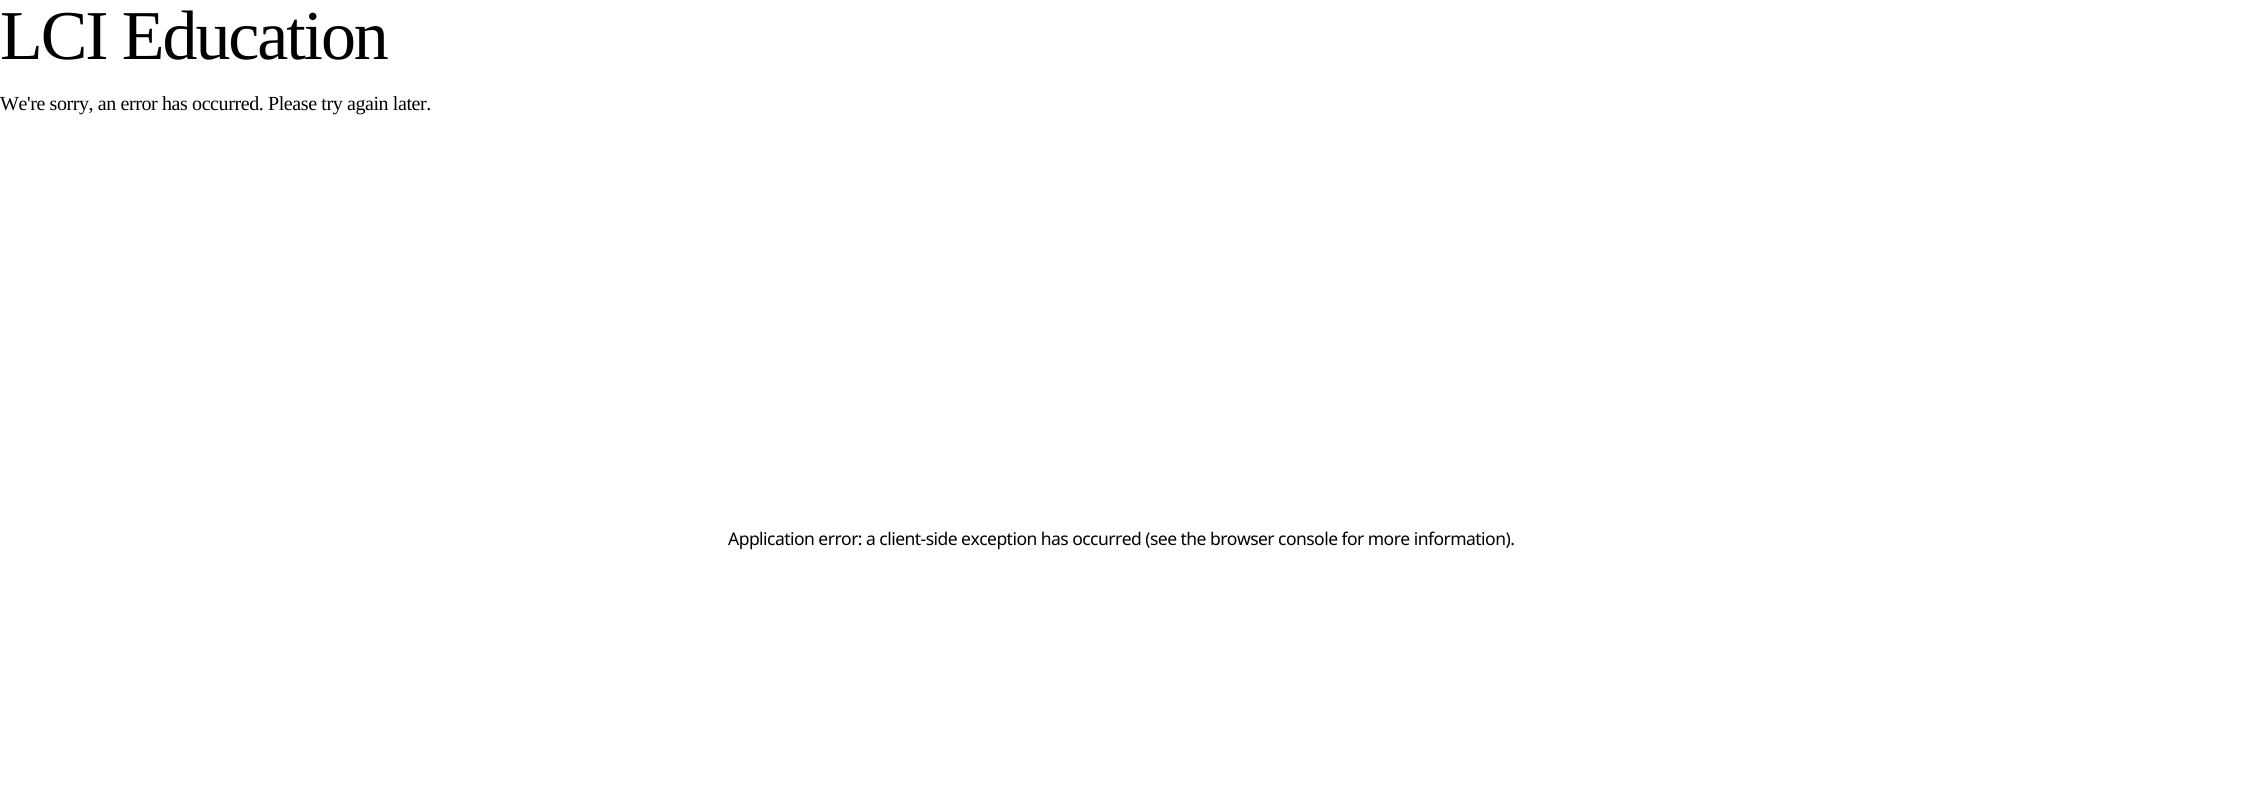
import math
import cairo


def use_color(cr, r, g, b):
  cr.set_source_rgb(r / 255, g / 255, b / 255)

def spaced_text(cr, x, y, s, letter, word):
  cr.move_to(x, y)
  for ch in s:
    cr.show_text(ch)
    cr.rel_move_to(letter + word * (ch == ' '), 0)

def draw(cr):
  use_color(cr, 255, 255, 255)
  cr.paint()
  cr.select_font_face("Liberation Serif")
  cr.set_font_size(70)
  use_color(cr, 0, 0, 0)
  spaced_text(cr, 0, 59, "LCI Education", -2.1, 0)
  cr.set_font_size(20)
  spaced_text(cr, 0, 110, "We're sorry, an error has occurred. Please try again later.", -0.4, 0)
  cr.select_font_face("Noto Sans")
  cr.set_font_size(17.5)
  spaced_text(cr, 728, 545, "Application error: a client-side exception has occurred (see the browser console for more information).", -0.53, 0)


surface = cairo.ImageSurface(cairo.FORMAT_RGB24, 2243, 800)
cr = cairo.Context(surface)
options = cairo.FontOptions()
options.set_hint_metrics(cairo.HINT_METRICS_OFF)
options.set_hint_style(cairo.HINT_STYLE_NONE)
cr.set_font_options(options)
cr.set_miter_limit(4)
draw(cr)
surface.write_to_png("out.png")
